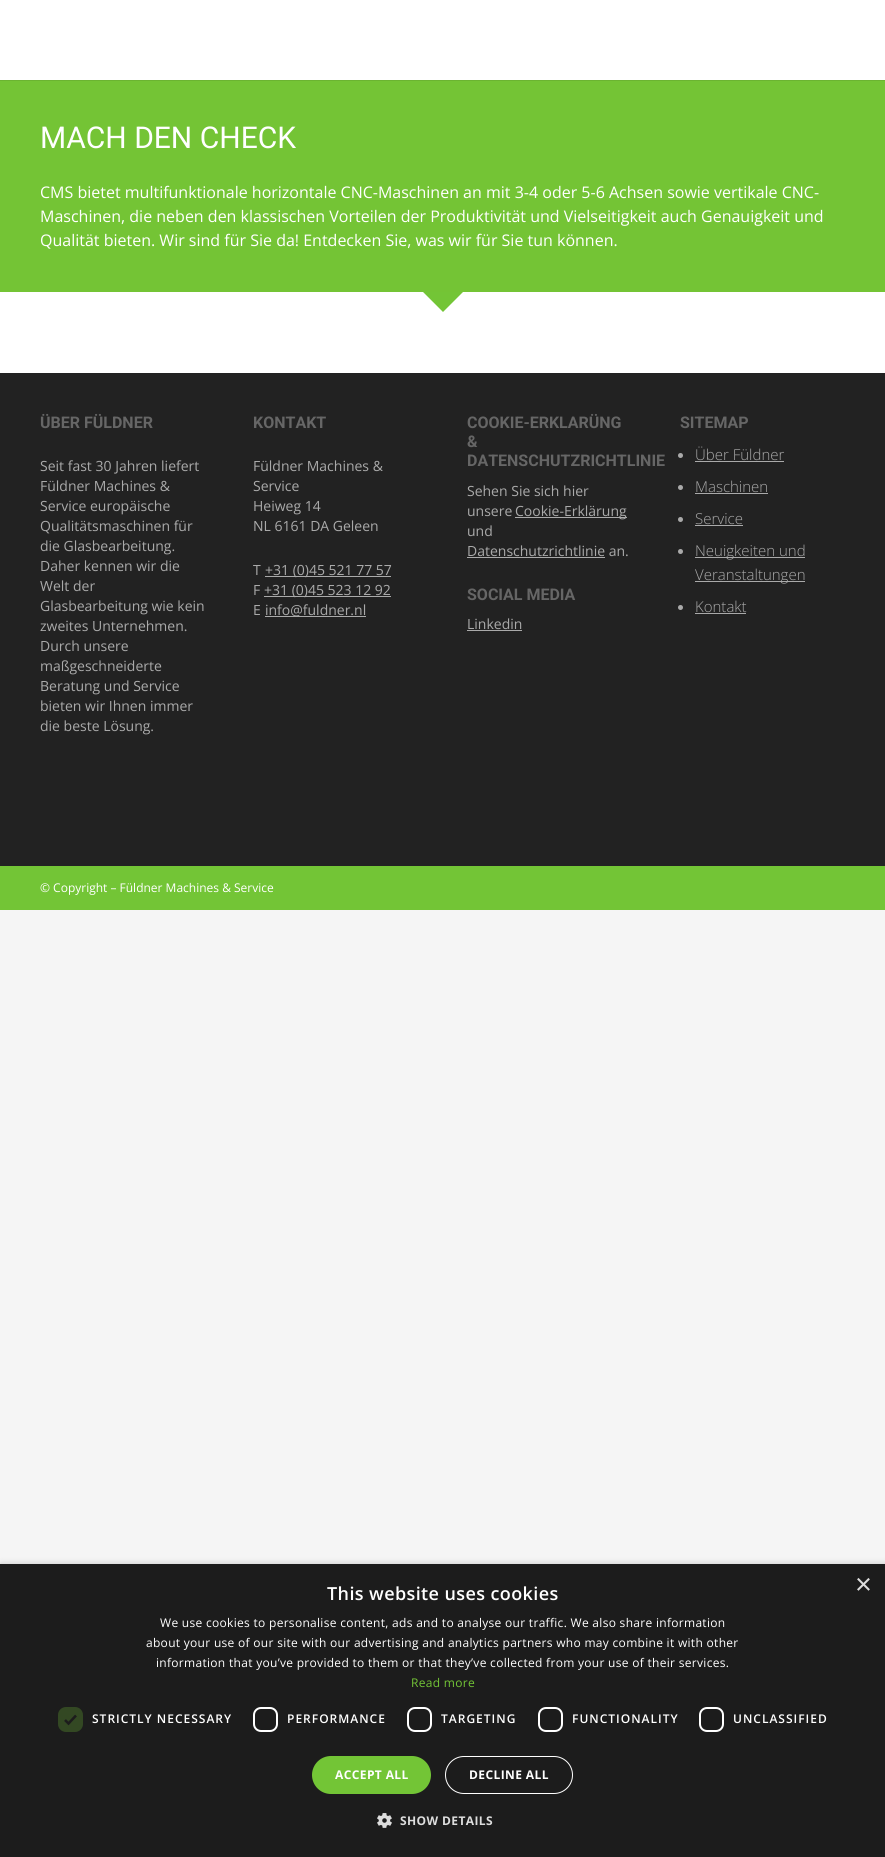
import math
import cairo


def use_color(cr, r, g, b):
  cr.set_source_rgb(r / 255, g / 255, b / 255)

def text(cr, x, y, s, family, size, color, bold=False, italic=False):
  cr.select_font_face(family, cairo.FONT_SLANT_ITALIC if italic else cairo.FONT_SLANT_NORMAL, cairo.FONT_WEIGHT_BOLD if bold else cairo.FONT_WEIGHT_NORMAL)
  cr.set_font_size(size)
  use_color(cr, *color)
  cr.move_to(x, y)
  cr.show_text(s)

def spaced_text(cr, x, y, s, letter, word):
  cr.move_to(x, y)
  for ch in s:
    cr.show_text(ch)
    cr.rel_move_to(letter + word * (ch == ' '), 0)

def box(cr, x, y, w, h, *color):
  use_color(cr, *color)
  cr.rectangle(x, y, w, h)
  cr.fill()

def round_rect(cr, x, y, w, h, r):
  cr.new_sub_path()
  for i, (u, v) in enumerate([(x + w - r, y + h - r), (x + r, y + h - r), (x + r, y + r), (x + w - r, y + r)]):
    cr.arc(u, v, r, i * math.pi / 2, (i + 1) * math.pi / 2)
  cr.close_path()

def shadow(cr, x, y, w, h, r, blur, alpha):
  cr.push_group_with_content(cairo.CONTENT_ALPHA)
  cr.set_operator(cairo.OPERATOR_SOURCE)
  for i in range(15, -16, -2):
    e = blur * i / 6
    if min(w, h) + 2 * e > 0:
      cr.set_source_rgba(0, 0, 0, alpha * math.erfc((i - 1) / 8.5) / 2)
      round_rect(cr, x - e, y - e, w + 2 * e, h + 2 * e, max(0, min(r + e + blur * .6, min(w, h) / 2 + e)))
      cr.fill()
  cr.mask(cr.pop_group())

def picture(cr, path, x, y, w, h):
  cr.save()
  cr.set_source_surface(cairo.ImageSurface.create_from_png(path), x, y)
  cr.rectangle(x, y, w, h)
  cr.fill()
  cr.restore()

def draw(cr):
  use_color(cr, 245, 245, 245)
  cr.paint()
  box(cr, 0, 292, 885, 81, 255, 255, 255)
  box(cr, 0, 80, 885, 1, 107, 180, 49)
  box(cr, 0, 0, 885, 80, 255, 255, 255)
  box(cr, 0, 81, 885, 211, 116, 196, 53)
  use_color(cr, 115, 197, 54)
  cr.new_path()
  cr.move_to(423, 292)
  cr.line_to(463, 292)
  cr.line_to(443, 312)
  cr.close_path()
  cr.fill()
  box(cr, 0, 373, 885, 493, 34, 34, 34)
  box(cr, 265, 576, 126, 1, 170, 170, 170)
  box(cr, 264, 596, 127, 1, 170, 170, 170)
  box(cr, 265, 616, 101, 1, 170, 170, 170)
  box(cr, 515, 517, 112, 1, 170, 170, 170)
  box(cr, 467, 557, 138, 1, 170, 170, 170)
  box(cr, 467, 630, 55, 1, 170, 170, 170)
  cr.arc(680.5, 455.5, 2.5, 0, 2 * math.pi)
  cr.fill()
  box(cr, 695, 461, 89, 1, 170, 170, 170)
  cr.arc(680.5, 487.5, 2.5, 0, 2 * math.pi)
  cr.fill()
  box(cr, 695, 493, 73, 1, 170, 170, 170)
  cr.arc(680.5, 519.5, 2.5, 0, 2 * math.pi)
  cr.fill()
  box(cr, 695, 525, 48, 1, 170, 170, 170)
  cr.arc(680.5, 551.5, 2.5, 0, 2 * math.pi)
  cr.fill()
  box(cr, 695, 557, 110, 1, 170, 170, 170)
  box(cr, 695, 581, 110, 1, 170, 170, 170)
  cr.arc(680.5, 607.5, 2.5, 0, 2 * math.pi)
  cr.fill()
  box(cr, 695, 613, 51, 1, 170, 170, 170)
  box(cr, 0, 866, 885, 44, 115, 197, 54)
  use_color(cr, 0, 0, 0)
  shadow(cr, 1, 1566, 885, 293, 0, 4, 0.35)
  box(cr, 0, 1564, 885, 293, 28, 28, 28)
  use_color(cr, 51, 72, 35)
  round_rect(cr, 58, 1707, 25, 25, 8)
  cr.fill()
  cr.new_path()
  cr.move_to(65, 1720)
  cr.line_to(68.5, 1723.5)
  cr.line_to(76, 1715.5)
  use_color(cr, 28, 28, 28)
  cr.set_line_width(2.6)
  cr.stroke()
  round_rect(cr, 254, 1708, 23, 23, 7)
  use_color(cr, 255, 255, 255)
  cr.set_line_width(2)
  cr.stroke()
  round_rect(cr, 408, 1708, 23, 23, 7)
  cr.stroke()
  round_rect(cr, 539, 1708, 23, 23, 7)
  cr.stroke()
  round_rect(cr, 700, 1708, 23, 23, 7)
  cr.stroke()
  use_color(cr, 115, 197, 54)
  round_rect(cr, 312, 1756, 119, 38, 19)
  cr.fill()
  round_rect(cr, 445.5, 1756.5, 127, 37, 18.5)
  use_color(cr, 255, 255, 255)
  cr.set_line_width(1)
  cr.stroke()
  picture(cr, "img_01.png", 377, 1813, 15, 15)
  text(cr, 40, 148, "MACH DEN CHECK", "Roboto", 30, (255, 255, 255))
  text(cr, 40, 198, "CMS bietet multifunktionale horizontale CNC-Maschinen an mit 3-4 oder 5-6 Achsen sowie vertikale CNC-", "Open Sans", 16, (255, 255, 255))
  text(cr, 40, 222, "Maschinen, die neben den klassischen Vorteilen der Produktivität und Vielseitigkeit auch Genauigkeit und", "Open Sans", 16, (255, 255, 255))
  text(cr, 40, 246, "Qualität bieten. Wir sind für Sie da! Entdecken Sie, was wir für Sie tun können.", "Open Sans", 16, (255, 255, 255))
  text(cr, 40, 428, "ÜBER FÜLDNER", "Roboto", 16, (102, 102, 102), bold=True)
  text(cr, 40, 471, "Seit fast 30 Jahren liefert", "Open Sans", 14, (170, 170, 170))
  text(cr, 40, 491, "Füldner Machines &", "Open Sans", 14, (170, 170, 170))
  text(cr, 40, 511, "Service europäische", "Open Sans", 14, (170, 170, 170))
  text(cr, 40, 531, "Qualitätsmaschinen für", "Open Sans", 14, (170, 170, 170))
  text(cr, 40, 551, "die Glasbearbeitung.", "Open Sans", 14, (170, 170, 170))
  text(cr, 40, 571, "Daher kennen wir die", "Open Sans", 14, (170, 170, 170))
  text(cr, 40, 591, "Welt der", "Open Sans", 14, (170, 170, 170))
  text(cr, 40, 611, "Glasbearbeitung wie kein", "Open Sans", 14, (170, 170, 170))
  text(cr, 40, 631, "zweites Unternehmen.", "Open Sans", 14, (170, 170, 170))
  text(cr, 40, 651, "Durch unsere", "Open Sans", 14, (170, 170, 170))
  text(cr, 40, 671, "maßgeschneiderte", "Open Sans", 14, (170, 170, 170))
  text(cr, 40, 691, "Beratung und Service", "Open Sans", 14, (170, 170, 170))
  text(cr, 40, 711, "bieten wir Ihnen immer", "Open Sans", 14, (170, 170, 170))
  text(cr, 40, 731, "die beste Lösung.", "Open Sans", 14, (170, 170, 170))
  text(cr, 253, 428, "KONTAKT", "Roboto", 16, (102, 102, 102), bold=True)
  text(cr, 253, 471, "Füldner Machines &", "Open Sans", 14, (170, 170, 170))
  text(cr, 253, 491, "Service", "Open Sans", 14, (170, 170, 170))
  text(cr, 253, 511, "Heiweg 14", "Open Sans", 14, (170, 170, 170))
  text(cr, 253, 531, "NL 6161 DA Geleen", "Open Sans", 14, (170, 170, 170))
  text(cr, 253, 575, "T", "Open Sans", 14, (170, 170, 170))
  text(cr, 265, 575, "+31 (0)45 521 77 57", "Open Sans", 14, (170, 170, 170))
  text(cr, 253, 595, "F", "Open Sans", 14, (170, 170, 170))
  text(cr, 264, 595, "+31 (0)45 523 12 92", "Open Sans", 14, (170, 170, 170))
  text(cr, 253, 615, "E", "Open Sans", 14, (170, 170, 170))
  text(cr, 265, 615, "info@fuldner.nl", "Open Sans", 14, (170, 170, 170))
  text(cr, 467, 428, "COOKIE-ERKLARÜNG", "Roboto", 16, (102, 102, 102), bold=True)
  text(cr, 467, 447, "&", "Roboto", 16, (102, 102, 102), bold=True)
  text(cr, 467, 466, "DATENSCHUTZRICHTLINIE", "Roboto", 16, (102, 102, 102), bold=True)
  text(cr, 467, 496, "Sehen Sie sich hier", "Open Sans", 14, (170, 170, 170))
  text(cr, 467, 516, "unsere", "Open Sans", 14, (170, 170, 170))
  text(cr, 515, 516, "Cookie-Erklärung", "Open Sans", 14, (170, 170, 170))
  text(cr, 467, 536, "und", "Open Sans", 14, (170, 170, 170))
  text(cr, 467, 556, "Datenschutzrichtlinie an.", "Open Sans", 14, (170, 170, 170))
  text(cr, 467, 600, "SOCIAL MEDIA", "Roboto", 16, (102, 102, 102), bold=True)
  text(cr, 467, 629, "Linkedin", "Open Sans", 14, (170, 170, 170))
  text(cr, 680, 428, "SITEMAP", "Roboto", 16, (102, 102, 102), bold=True)
  text(cr, 695, 460, "Über Füldner", "Open Sans Light", 15, (170, 170, 170))
  text(cr, 695, 492, "Maschinen", "Open Sans Light", 15, (170, 170, 170))
  text(cr, 695, 524, "Service", "Open Sans Light", 15, (170, 170, 170))
  text(cr, 695, 556, "Neuigkeiten und", "Open Sans Light", 15, (170, 170, 170))
  text(cr, 695, 580, "Veranstaltungen", "Open Sans Light", 15, (170, 170, 170))
  text(cr, 695, 612, "Kontakt", "Open Sans Light", 15, (170, 170, 170))
  text(cr, 40, 892, "© Copyright – Füldner Machines & Service", "Open Sans", 12, (255, 255, 255))
  text(cr, 855, 1594, "×", "Liberation Sans", 29, (221, 221, 221))
  cr.select_font_face("Open Sans SemiBold")
  cr.set_font_size(18)
  use_color(cr, 255, 255, 255)
  spaced_text(cr, 327, 1600, "This website uses cookies", 0.4, 0)
  cr.select_font_face("Open Sans")
  cr.set_font_size(12)
  spaced_text(cr, 160, 1627, "We use cookies to personalise content, ads and to analyse our traffic. We also share information", 0.3, 0)
  spaced_text(cr, 146, 1647, "about your use of our site with our advertising and analytics partners who may combine it with other", 0.3, 0)
  spaced_text(cr, 156, 1667, "information that you’ve provided to them or that they’ve collected from your use of their services.", 0.3, 0)
  use_color(cr, 115, 197, 54)
  spaced_text(cr, 411, 1687, "Read more", 0.3, 0)
  cr.select_font_face("Open Sans SemiBold")
  use_color(cr, 255, 255, 255)
  spaced_text(cr, 92, 1723, "STRICTLY NECESSARY", 1, 0)
  spaced_text(cr, 287, 1723, "PERFORMANCE", 1, 0)
  spaced_text(cr, 441, 1723, "TARGETING", 1, 0)
  spaced_text(cr, 572, 1723, "FUNCTIONALITY", 1, 0)
  spaced_text(cr, 733, 1723, "UNCLASSIFIED", 1, 0)
  cr.select_font_face("Open Sans", cairo.FONT_SLANT_NORMAL, cairo.FONT_WEIGHT_BOLD)
  spaced_text(cr, 335, 1779, "ACCEPT ALL", 0.4, 0)
  spaced_text(cr, 469, 1779, "DECLINE ALL", 0.4, 0)
  use_color(cr, 221, 221, 221)
  spaced_text(cr, 400, 1825, "SHOW DETAILS", 0.4, 0)


surface = cairo.ImageSurface(cairo.FORMAT_RGB24, 885, 1857)
cr = cairo.Context(surface)
options = cairo.FontOptions()
options.set_hint_metrics(cairo.HINT_METRICS_OFF)
options.set_hint_style(cairo.HINT_STYLE_NONE)
cr.set_font_options(options)
cr.set_miter_limit(4)
draw(cr)
surface.write_to_png("out.png")
